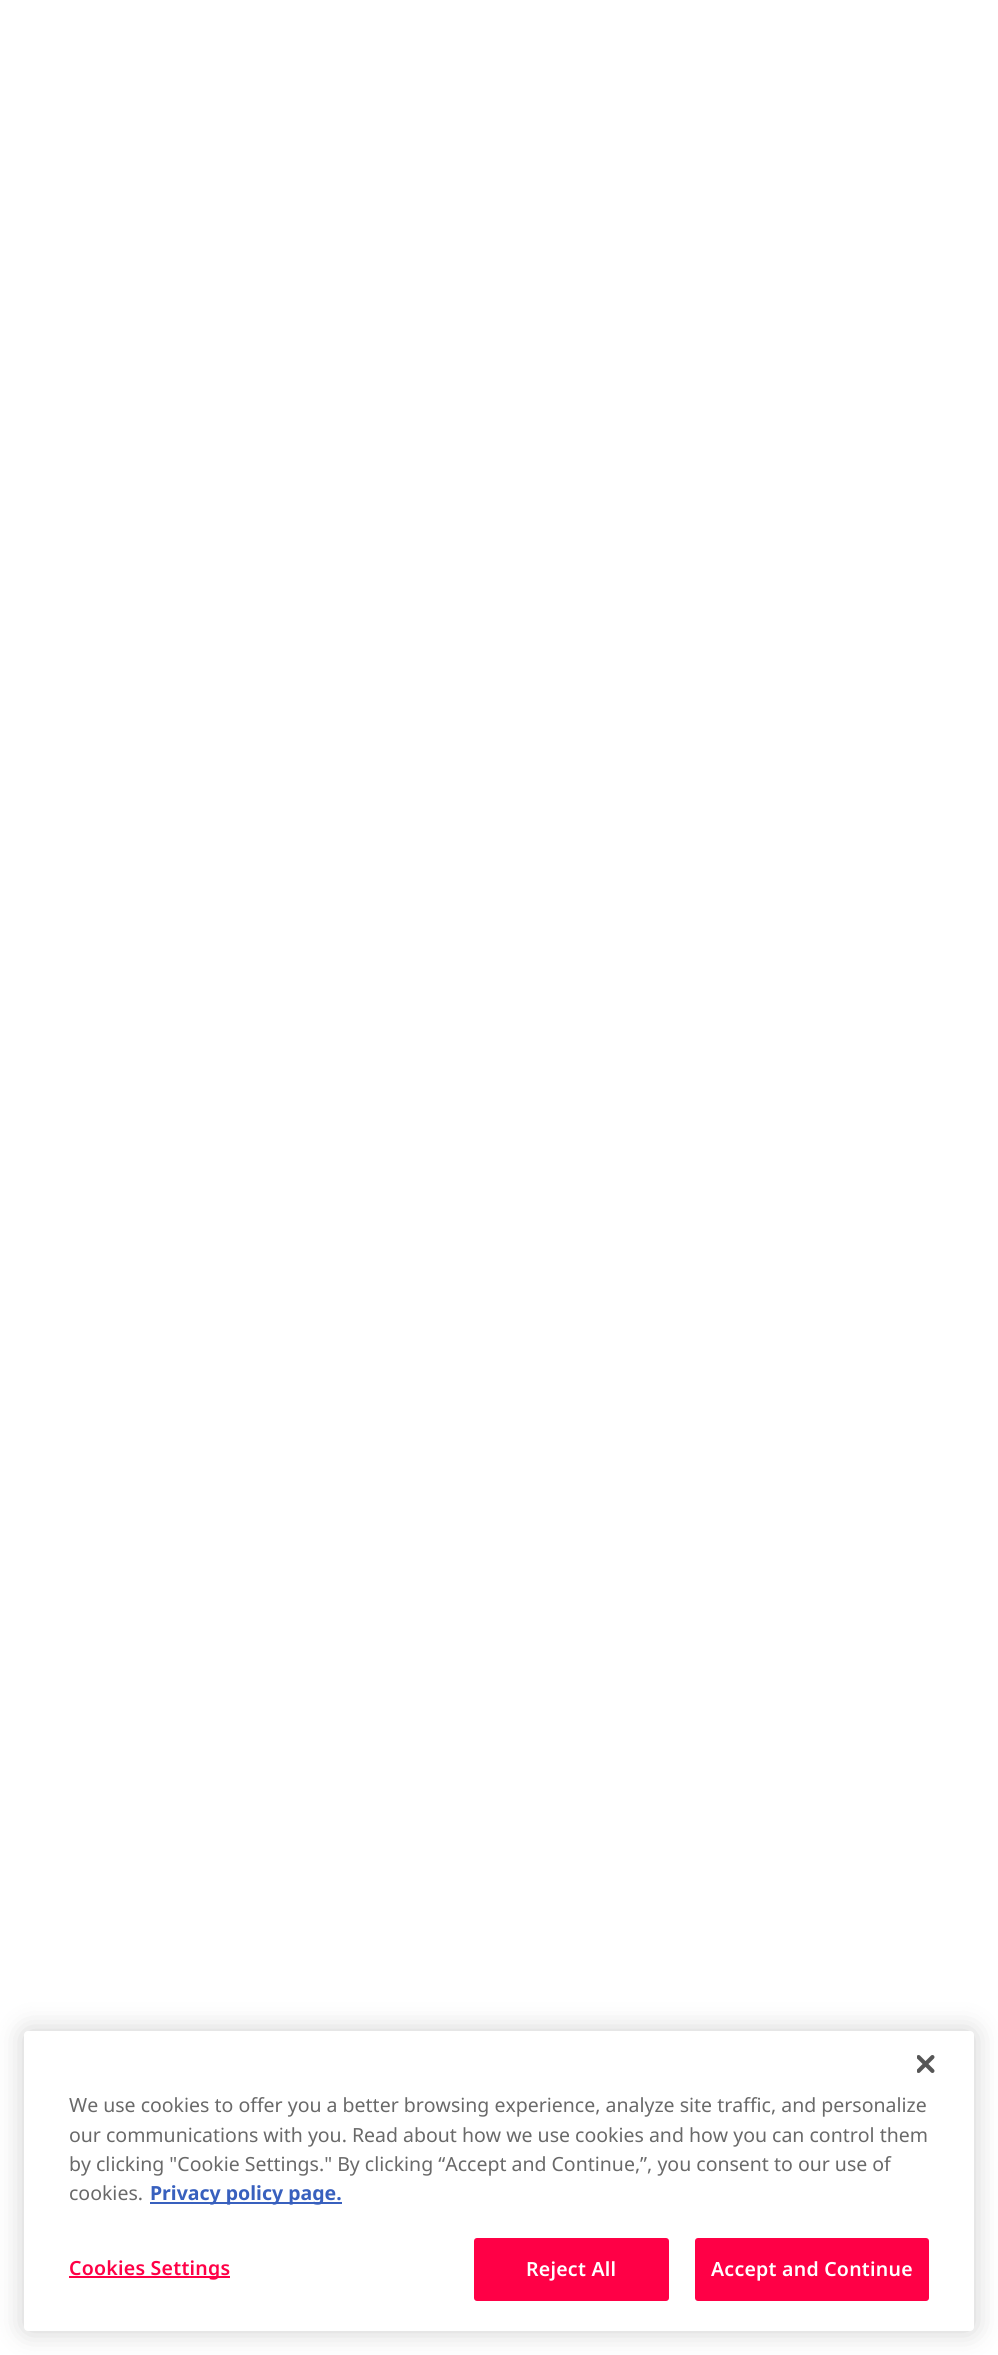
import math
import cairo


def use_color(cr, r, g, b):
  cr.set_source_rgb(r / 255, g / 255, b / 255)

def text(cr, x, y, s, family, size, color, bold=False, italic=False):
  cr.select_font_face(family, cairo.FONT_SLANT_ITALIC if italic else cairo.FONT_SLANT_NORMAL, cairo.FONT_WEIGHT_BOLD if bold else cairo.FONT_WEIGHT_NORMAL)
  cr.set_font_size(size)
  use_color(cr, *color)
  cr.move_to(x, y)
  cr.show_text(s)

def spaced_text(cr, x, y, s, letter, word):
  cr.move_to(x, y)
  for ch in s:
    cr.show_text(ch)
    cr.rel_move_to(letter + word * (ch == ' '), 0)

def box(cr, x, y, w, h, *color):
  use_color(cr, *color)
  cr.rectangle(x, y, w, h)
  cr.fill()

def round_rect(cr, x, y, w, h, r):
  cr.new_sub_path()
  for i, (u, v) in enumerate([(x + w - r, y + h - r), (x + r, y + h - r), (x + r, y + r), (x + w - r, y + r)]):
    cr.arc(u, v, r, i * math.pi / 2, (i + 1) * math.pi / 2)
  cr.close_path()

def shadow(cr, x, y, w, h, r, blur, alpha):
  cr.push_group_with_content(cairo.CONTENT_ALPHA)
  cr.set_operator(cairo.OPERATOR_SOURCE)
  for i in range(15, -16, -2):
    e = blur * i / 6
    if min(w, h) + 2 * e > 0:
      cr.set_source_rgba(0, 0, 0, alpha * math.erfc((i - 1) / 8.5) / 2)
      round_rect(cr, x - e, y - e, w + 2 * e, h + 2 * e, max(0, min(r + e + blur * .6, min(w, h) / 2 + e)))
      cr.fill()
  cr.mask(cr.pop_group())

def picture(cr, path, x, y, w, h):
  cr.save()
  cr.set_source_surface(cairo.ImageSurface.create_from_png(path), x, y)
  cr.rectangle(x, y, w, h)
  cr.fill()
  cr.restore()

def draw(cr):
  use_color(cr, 255, 255, 255)
  cr.paint()
  use_color(cr, 0, 0, 0)
  shadow(cr, 24, 2031, 950, 300, 4, 13.5, 0.2)
  use_color(cr, 255, 255, 255)
  round_rect(cr, 24, 2031, 950, 300, 4)
  cr.fill()
  picture(cr, "img_01.png", 917, 2055, 18, 18)
  box(cr, 150, 2202, 192, 2, 56, 96, 190)
  box(cr, 69, 2276, 161, 2, 255, 0, 70)
  round_rect(cr, 475, 2239, 193, 61, 2)
  cr.fill_preserve()
  cr.stroke()
  round_rect(cr, 696, 2239, 232, 61, 2)
  cr.fill_preserve()
  cr.stroke()
  text(cr, 69, 2112, "We use cookies to offer you a better browsing experience, analyze site traffic, and personalize", "Noto Sans", 19.5, (105, 105, 105))
  text(cr, 69, 2142, "our communications with you. Read about how we use cookies and how you can control them", "Noto Sans", 19.5, (105, 105, 105))
  text(cr, 69, 2171, "by clicking \"Cookie Settings.\" By clicking “Accept and Continue,”, you consent to our use of", "Noto Sans", 19.5, (105, 105, 105))
  text(cr, 69, 2200, "cookies.", "Noto Sans", 19.5, (105, 105, 105))
  text(cr, 150, 2200, "Privacy policy page.", "Noto Sans", 19.5, (56, 96, 190), bold=True)
  cr.select_font_face("Noto Sans SemiBold")
  use_color(cr, 255, 0, 70)
  spaced_text(cr, 69, 2275, "Cookies Settings", 0.25, 0)
  use_color(cr, 255, 255, 255)
  spaced_text(cr, 526, 2276, "Reject All", 0.25, 0)
  spaced_text(cr, 711, 2276, "Accept and Continue", 0.25, 0)


surface = cairo.ImageSurface(cairo.FORMAT_RGB24, 998, 2355)
cr = cairo.Context(surface)
options = cairo.FontOptions()
options.set_hint_metrics(cairo.HINT_METRICS_OFF)
options.set_hint_style(cairo.HINT_STYLE_NONE)
cr.set_font_options(options)
cr.set_miter_limit(4)
draw(cr)
surface.write_to_png("out.png")
